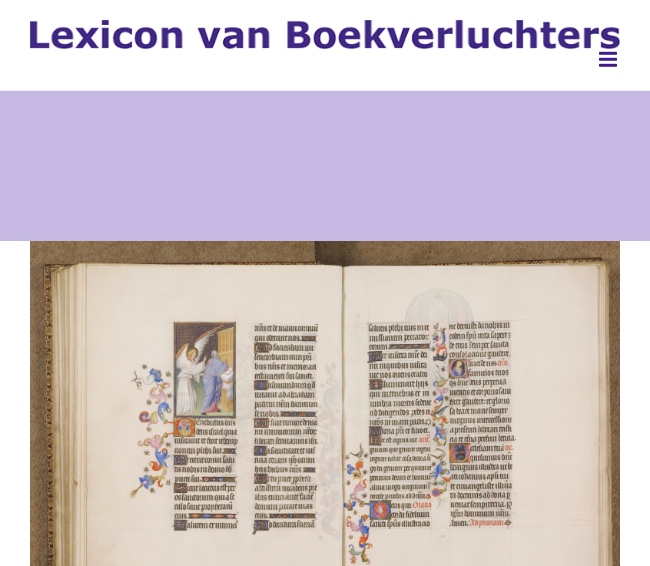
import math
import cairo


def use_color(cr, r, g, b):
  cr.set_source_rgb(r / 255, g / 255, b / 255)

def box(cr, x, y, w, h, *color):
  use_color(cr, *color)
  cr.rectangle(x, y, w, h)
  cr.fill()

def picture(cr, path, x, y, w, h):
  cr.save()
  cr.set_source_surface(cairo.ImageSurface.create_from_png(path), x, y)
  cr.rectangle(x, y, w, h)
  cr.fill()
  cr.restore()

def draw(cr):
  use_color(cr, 255, 255, 255)
  cr.paint()
  box(cr, 0, 90, 650, 1, 242, 242, 242)
  picture(cr, "img_01.png", 30, 20, 590, 29)
  picture(cr, "img_02.png", 599, 51, 18, 16)
  box(cr, 0, 91, 650, 150, 197, 184, 226)
  picture(cr, "img_03.png", 30, 241, 590, 325)


surface = cairo.ImageSurface(cairo.FORMAT_RGB24, 650, 566)
cr = cairo.Context(surface)
options = cairo.FontOptions()
options.set_hint_metrics(cairo.HINT_METRICS_OFF)
options.set_hint_style(cairo.HINT_STYLE_NONE)
cr.set_font_options(options)
cr.set_miter_limit(4)
draw(cr)
surface.write_to_png("out.png")
